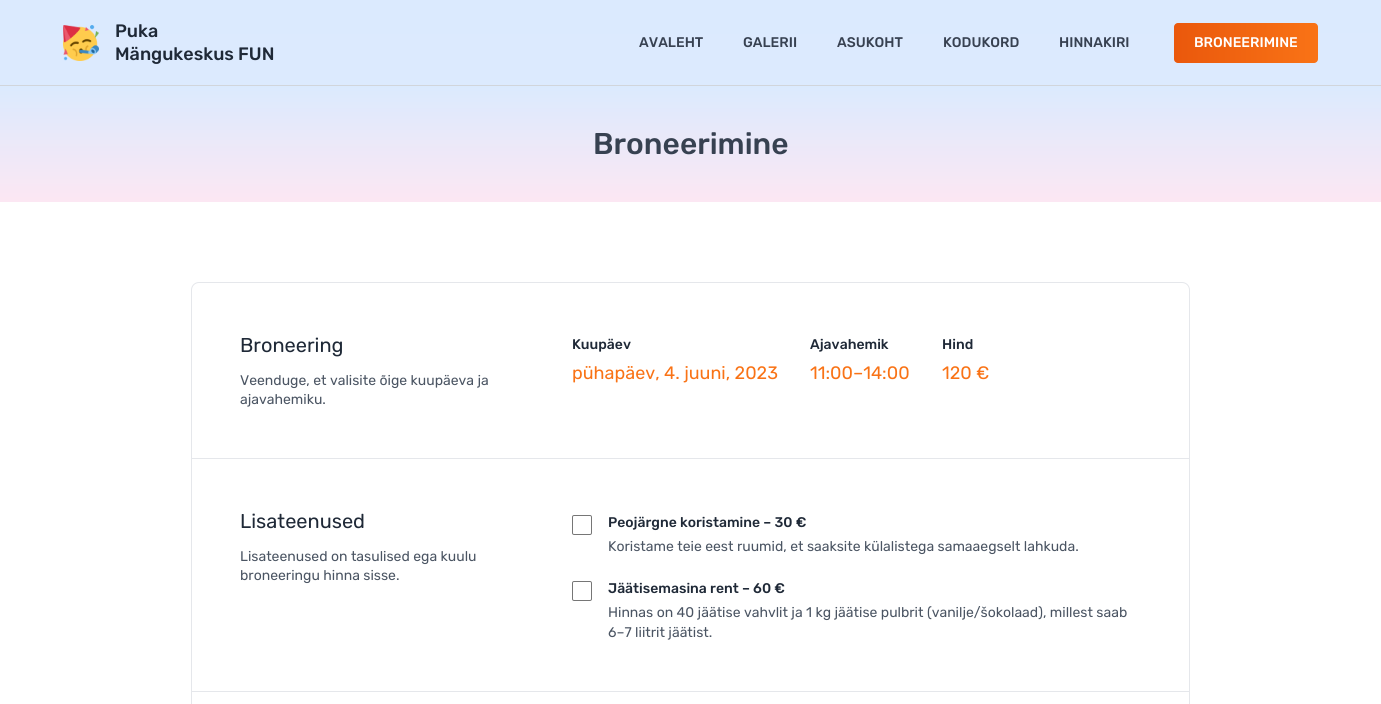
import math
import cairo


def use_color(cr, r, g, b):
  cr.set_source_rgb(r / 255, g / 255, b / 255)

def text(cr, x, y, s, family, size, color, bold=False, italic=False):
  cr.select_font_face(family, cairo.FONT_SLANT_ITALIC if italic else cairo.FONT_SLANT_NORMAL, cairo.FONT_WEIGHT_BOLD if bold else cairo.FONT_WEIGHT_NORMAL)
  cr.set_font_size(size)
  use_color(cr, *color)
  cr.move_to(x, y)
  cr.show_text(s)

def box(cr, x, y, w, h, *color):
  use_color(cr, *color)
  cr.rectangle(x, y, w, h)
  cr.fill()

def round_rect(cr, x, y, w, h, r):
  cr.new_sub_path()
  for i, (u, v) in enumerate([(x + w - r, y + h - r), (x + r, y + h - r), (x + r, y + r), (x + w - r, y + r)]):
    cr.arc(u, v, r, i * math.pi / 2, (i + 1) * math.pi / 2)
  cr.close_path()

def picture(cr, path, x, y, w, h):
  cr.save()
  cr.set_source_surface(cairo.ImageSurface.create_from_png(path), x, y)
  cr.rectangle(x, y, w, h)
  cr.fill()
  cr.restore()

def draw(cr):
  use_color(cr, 255, 255, 255)
  cr.paint()
  gradient = cairo.LinearGradient(690, 0, 691, 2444)
  gradient.add_color_stop_rgba(0, 0.859, 0.918, 0.996, 1)
  gradient.add_color_stop_rgba(1, 0.988, 0.906, 0.953, 1)
  cr.set_source(gradient)
  cr.rectangle(0, 0, 1381, 85)
  cr.fill()
  picture(cr, "img_01.png", 63, 25, 36, 36)
  gradient = cairo.LinearGradient(1174, 43, 1318, 43)
  gradient.add_color_stop_rgba(0, 0.918, 0.345, 0.047, 1)
  gradient.add_color_stop_rgba(1, 0.976, 0.451, 0.086, 1)
  cr.set_source(gradient)
  round_rect(cr, 1174, 23, 144, 40, 4)
  cr.fill()
  gradient = cairo.LinearGradient(691, 86, 691, 202)
  gradient.add_color_stop_rgba(0, 0.859, 0.918, 0.996, 1)
  gradient.add_color_stop_rgba(1, 0.988, 0.906, 0.953, 1)
  cr.set_source(gradient)
  cr.rectangle(0, 86, 1381, 116)
  cr.fill()
  box(cr, 0, 85, 1381, 1, 209, 213, 219)
  round_rect(cr, 191.5, 282.5, 998, 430, 7.5)
  use_color(cr, 229, 231, 235)
  cr.set_line_width(1)
  cr.stroke()
  box(cr, 192, 458, 997, 1, 229, 231, 235)
  box(cr, 192, 691, 997, 1, 229, 231, 235)
  round_rect(cr, 572.5, 515.5, 19, 19, 1.5)
  use_color(cr, 118, 118, 118)
  cr.stroke()
  round_rect(cr, 572.5, 581.5, 19, 19, 1.5)
  cr.stroke()
  text(cr, 115, 37, "Puka", "Rubik Light", 18, (31, 41, 55))
  text(cr, 115, 60, "Mängukeskus FUN", "Rubik Light", 18, (31, 41, 55))
  text(cr, 639, 47, "AVALEHT", "Rubik Light", 14, (55, 65, 81))
  text(cr, 743, 47, "GALERII", "Rubik Light", 14, (55, 65, 81))
  text(cr, 837, 47, "ASUKOHT", "Rubik Light", 14, (55, 65, 81))
  text(cr, 943, 47, "KODUKORD", "Rubik Light", 14, (55, 65, 81))
  text(cr, 1059, 47, "HINNAKIRI", "Rubik Light", 14, (55, 65, 81))
  text(cr, 1194, 47, "BRONEERIMINE", "Rubik Light", 14, (255, 255, 255))
  text(cr, 593, 154, "Broneerimine", "Rubik Light", 30, (55, 65, 81))
  text(cr, 240, 352, "Broneering", "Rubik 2 Light", 20, (31, 41, 55))
  text(cr, 240, 385, "Veenduge, et valisite õige kuupäeva ja", "Rubik 2 Light", 14, (75, 85, 99))
  text(cr, 240, 404, "ajavahemiku.", "Rubik 2 Light", 14, (75, 85, 99))
  text(cr, 572, 349, "Kuupäev", "Rubik Light", 14, (31, 41, 55))
  text(cr, 572, 379, "pühapäev, 4. juuni, 2023", "Rubik 2 Light", 18, (249, 115, 22))
  text(cr, 810, 349, "Ajavahemik", "Rubik Light", 14, (31, 41, 55))
  text(cr, 810, 379, "11:00–14:00", "Rubik 2 Light", 18, (249, 115, 22))
  text(cr, 942, 349, "Hind", "Rubik Light", 14, (31, 41, 55))
  text(cr, 942, 379, "120 €", "Rubik 2 Light", 18, (249, 115, 22))
  text(cr, 240, 528, "Lisateenused", "Rubik 2 Light", 20, (31, 41, 55))
  text(cr, 240, 561, "Lisateenused on tasulised ega kuulu", "Rubik 2 Light", 14, (75, 85, 99))
  text(cr, 240, 580, "broneeringu hinna sisse.", "Rubik 2 Light", 14, (75, 85, 99))
  text(cr, 608, 527, "Peojärgne koristamine – 30 €", "Rubik Light", 14, (31, 41, 55))
  text(cr, 608, 551, "Koristame teie eest ruumid, et saaksite külalistega samaaegselt lahkuda.", "Rubik 2 Light", 14, (75, 85, 99))
  text(cr, 608, 593, "Jäätisemasina rent – 60 €", "Rubik Light", 14, (31, 41, 55))
  text(cr, 608, 617, "Hinnas on 40 jäätise vahvlit ja 1 kg jäätise pulbrit (vanilje/šokolaad), millest saab", "Rubik 2 Light", 14, (75, 85, 99))
  text(cr, 608, 637, "6–7 liitrit jäätist.", "Rubik 2 Light", 14, (75, 85, 99))


surface = cairo.ImageSurface(cairo.FORMAT_RGB24, 1381, 704)
cr = cairo.Context(surface)
options = cairo.FontOptions()
options.set_hint_metrics(cairo.HINT_METRICS_OFF)
options.set_hint_style(cairo.HINT_STYLE_NONE)
cr.set_font_options(options)
cr.set_miter_limit(4)
draw(cr)
surface.write_to_png("out.png")
